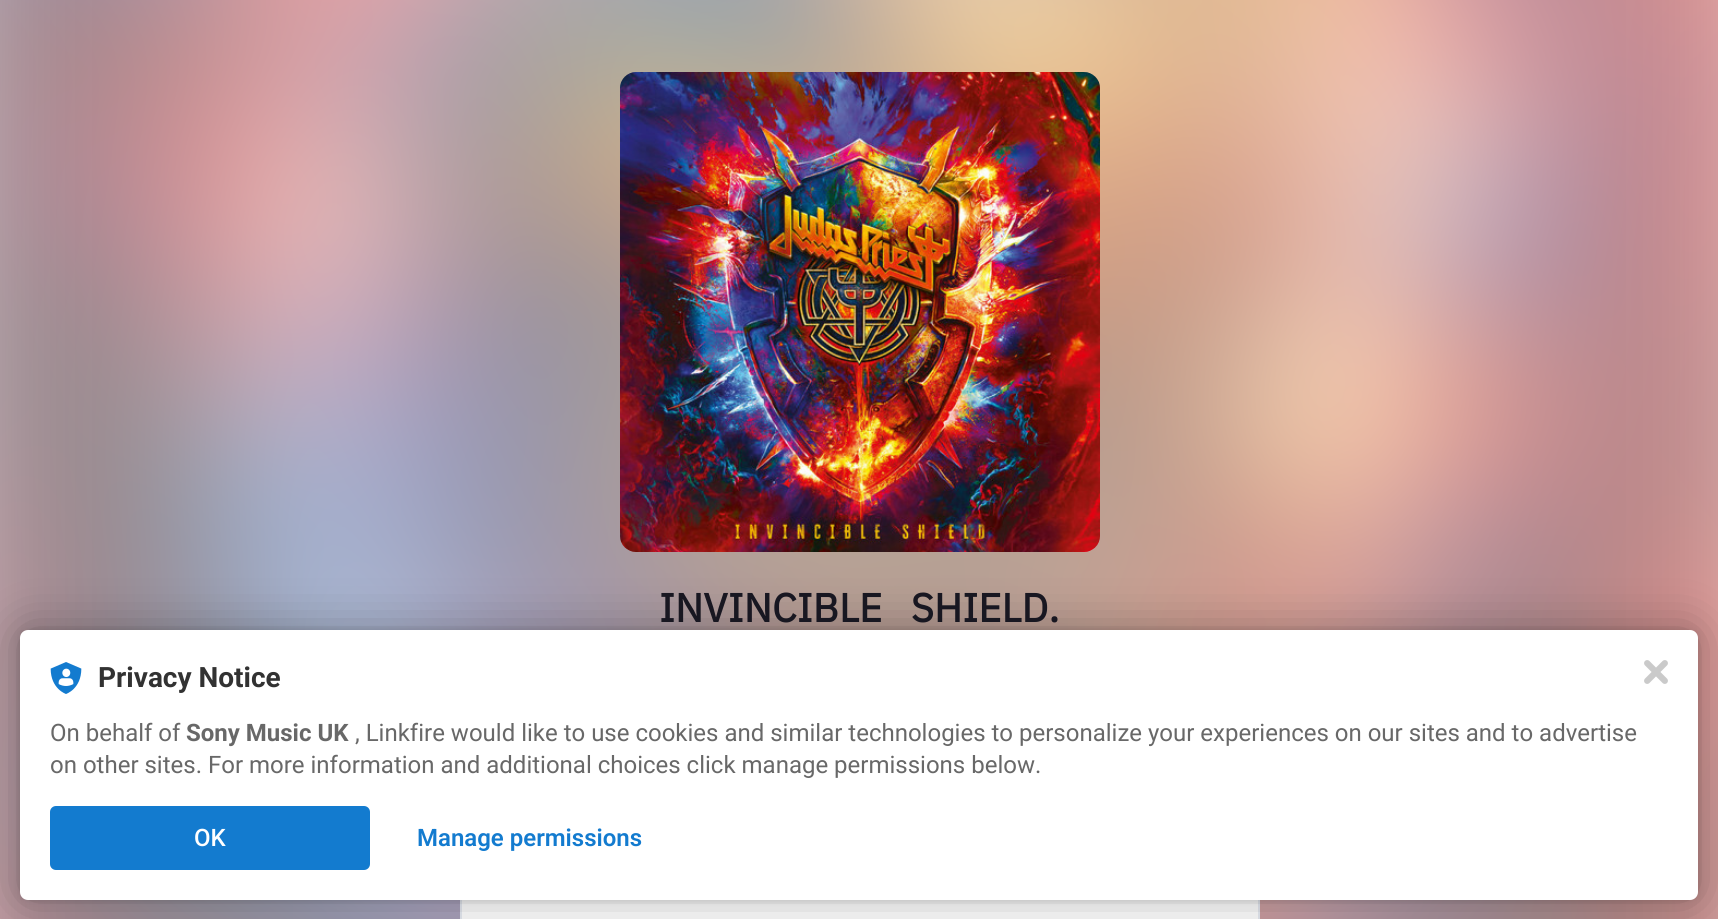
import math
import cairo


def use_color(cr, r, g, b):
  cr.set_source_rgb(r / 255, g / 255, b / 255)

def text(cr, x, y, s, family, size, color, bold=False, italic=False):
  cr.select_font_face(family, cairo.FONT_SLANT_ITALIC if italic else cairo.FONT_SLANT_NORMAL, cairo.FONT_WEIGHT_BOLD if bold else cairo.FONT_WEIGHT_NORMAL)
  cr.set_font_size(size)
  use_color(cr, *color)
  cr.move_to(x, y)
  cr.show_text(s)

def spaced_text(cr, x, y, s, letter, word):
  cr.move_to(x, y)
  for ch in s:
    cr.show_text(ch)
    cr.rel_move_to(letter + word * (ch == ' '), 0)

def box(cr, x, y, w, h, *color):
  use_color(cr, *color)
  cr.rectangle(x, y, w, h)
  cr.fill()

def round_rect(cr, x, y, w, h, r):
  cr.new_sub_path()
  for i, (u, v) in enumerate([(x + w - r, y + h - r), (x + r, y + h - r), (x + r, y + r), (x + w - r, y + r)]):
    cr.arc(u, v, r, i * math.pi / 2, (i + 1) * math.pi / 2)
  cr.close_path()

def shadow(cr, x, y, w, h, r, blur, alpha):
  cr.push_group_with_content(cairo.CONTENT_ALPHA)
  cr.set_operator(cairo.OPERATOR_SOURCE)
  for i in range(15, -16, -2):
    e = blur * i / 6
    if min(w, h) + 2 * e > 0:
      cr.set_source_rgba(0, 0, 0, alpha * math.erfc((i - 1) / 8.5) / 2)
      round_rect(cr, x - e, y - e, w + 2 * e, h + 2 * e, max(0, min(r + e + blur * .6, min(w, h) / 2 + e)))
      cr.fill()
  cr.mask(cr.pop_group())

def picture(cr, path, x, y, w, h):
  cr.save()
  cr.set_source_surface(cairo.ImageSurface.create_from_png(path), x, y)
  cr.rectangle(x, y, w, h)
  cr.fill()
  cr.restore()

def draw(cr):
  use_color(cr, 255, 255, 255)
  cr.paint()
  picture(cr, "img_01.png", 0, 0, 1718, 919)
  picture(cr, "img_02.png", 620, 72, 480, 480)
  cr.rectangle(461, 745, 798, 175)
  use_color(cr, 230, 234, 242)
  cr.stroke()
  box(cr, 462, 900, 796, 19, 255, 255, 255)
  use_color(cr, 0, 0, 0)
  shadow(cr, 20, 630, 1678, 270, 8, 4, 0.12)
  shadow(cr, 20, 630, 1678, 270, 8, 24, 0.3)
  use_color(cr, 255, 255, 255)
  round_rect(cr, 20, 630, 1678, 270, 8)
  cr.fill()
  picture(cr, "img_03.png", 50, 662, 32, 32)
  use_color(cr, 19, 123, 207)
  round_rect(cr, 50, 806, 320, 64, 6)
  cr.fill()
  picture(cr, "img_04.png", 1644, 660, 24, 24)
  cr.select_font_face("IBM Plex Sans", cairo.FONT_SLANT_NORMAL, cairo.FONT_WEIGHT_BOLD)
  cr.set_font_size(40)
  use_color(cr, 24, 23, 33)
  spaced_text(cr, 659, 622, "INVINCIBLE SHIELD.", 0, 19)
  text(cr, 98, 687, "Privacy Notice", "Roboto", 28, (50, 50, 50), bold=True)
  text(cr, 50, 741, "On behalf of", "Roboto", 24, (104, 104, 104))
  text(cr, 186, 741, "Sony Music UK", "Roboto", 24, (104, 104, 104), bold=True)
  text(cr, 355, 741, ", Linkfire would like to use cookies and similar technologies to personalize your experiences on our sites and to advertise", "Roboto", 24, (104, 104, 104))
  text(cr, 50, 773, "on other sites. For more information and additional choices click manage permissions below.", "Roboto", 24, (104, 104, 104))
  text(cr, 194, 846, "OK", "Roboto Medium", 24, (255, 255, 255))
  text(cr, 417, 846, "Manage permissions", "Roboto SemiBold", 24, (19, 123, 207))


surface = cairo.ImageSurface(cairo.FORMAT_RGB24, 1718, 919)
cr = cairo.Context(surface)
options = cairo.FontOptions()
options.set_hint_metrics(cairo.HINT_METRICS_OFF)
options.set_hint_style(cairo.HINT_STYLE_NONE)
cr.set_font_options(options)
cr.set_miter_limit(4)
draw(cr)
surface.write_to_png("out.png")
